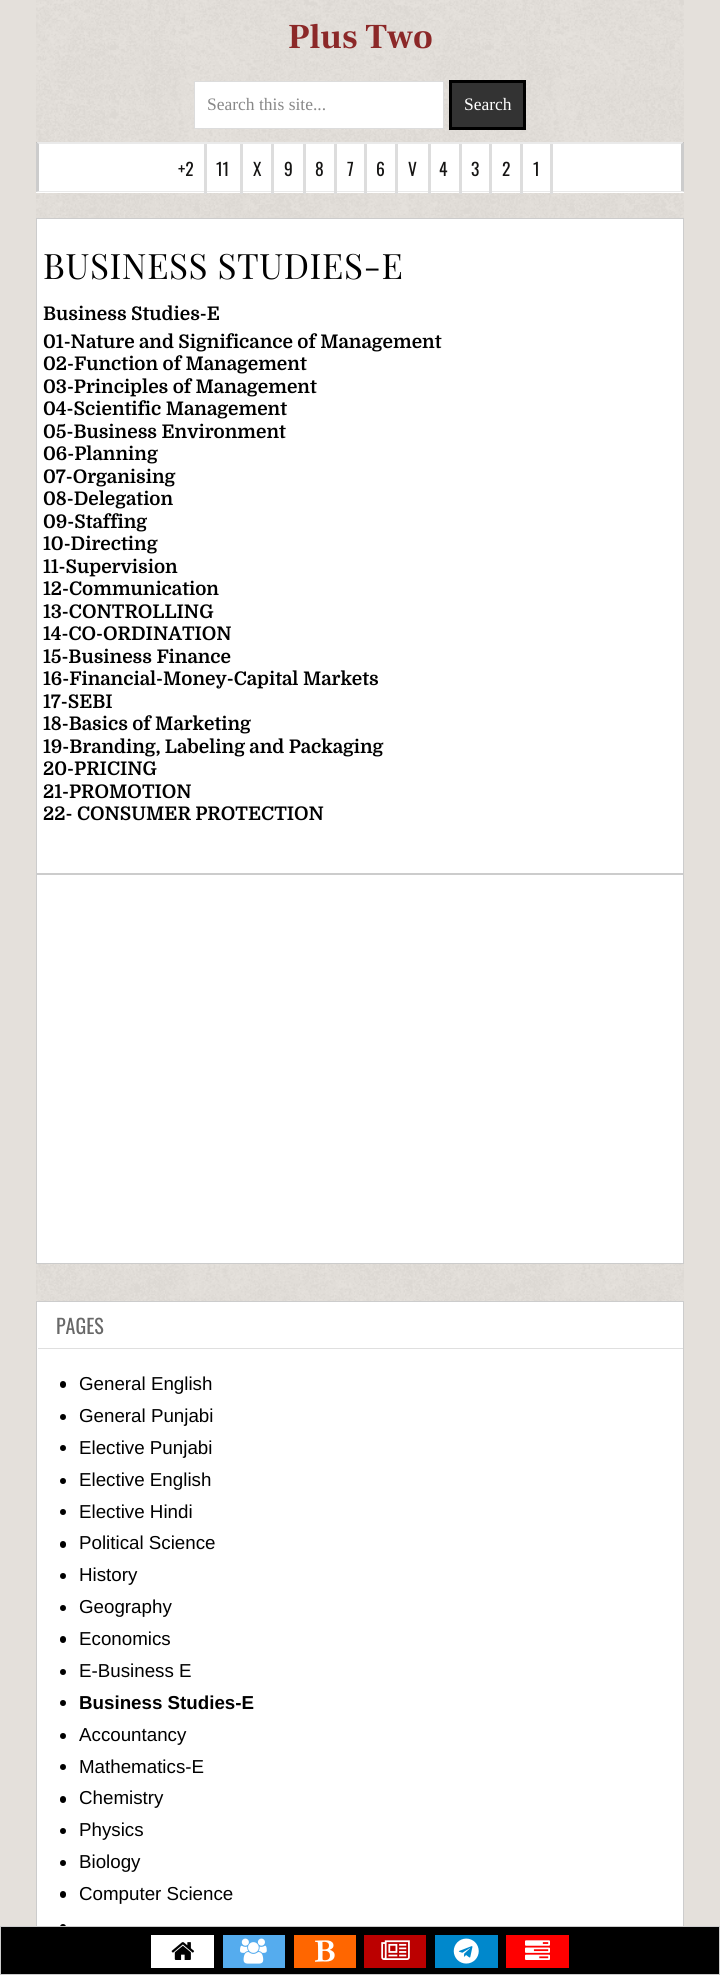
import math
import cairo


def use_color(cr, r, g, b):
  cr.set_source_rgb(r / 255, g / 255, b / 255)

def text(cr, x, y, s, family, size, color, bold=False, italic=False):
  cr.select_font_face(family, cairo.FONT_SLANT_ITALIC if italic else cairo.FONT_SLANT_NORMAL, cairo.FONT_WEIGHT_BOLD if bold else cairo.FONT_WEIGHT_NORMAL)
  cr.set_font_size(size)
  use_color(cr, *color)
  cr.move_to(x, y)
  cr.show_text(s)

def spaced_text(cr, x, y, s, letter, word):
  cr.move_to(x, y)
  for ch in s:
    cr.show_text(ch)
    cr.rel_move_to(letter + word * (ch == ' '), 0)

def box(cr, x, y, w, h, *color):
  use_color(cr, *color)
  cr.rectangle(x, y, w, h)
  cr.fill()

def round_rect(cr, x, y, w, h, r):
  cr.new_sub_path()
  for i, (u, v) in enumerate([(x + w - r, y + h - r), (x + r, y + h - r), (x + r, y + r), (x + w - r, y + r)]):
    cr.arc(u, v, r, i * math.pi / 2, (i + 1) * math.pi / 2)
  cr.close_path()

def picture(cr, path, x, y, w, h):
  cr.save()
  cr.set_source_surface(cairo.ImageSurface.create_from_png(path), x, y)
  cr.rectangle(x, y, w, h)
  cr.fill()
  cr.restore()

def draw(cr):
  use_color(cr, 228, 224, 219)
  cr.paint()
  picture(cr, "img_01.png", 36, 0, 648, 1301)
  use_color(cr, 255, 255, 255)
  cr.rectangle(194.5, 81.5, 249, 47)
  cr.fill_preserve()
  use_color(cr, 220, 220, 220)
  cr.set_line_width(1)
  cr.stroke()
  use_color(cr, 51, 51, 51)
  cr.rectangle(450.5, 81.5, 74, 47)
  cr.fill_preserve()
  use_color(cr, 0, 0, 0)
  cr.set_line_width(3)
  cr.stroke()
  box(cr, 36, 143, 648, 50, 255, 255, 255)
  use_color(cr, 234, 234, 234)
  cr.new_path()
  cr.move_to(36, 142)
  cr.line_to(684, 142)
  cr.line_to(681, 144)
  cr.line_to(39, 144)
  cr.close_path()
  cr.fill()
  cr.set_source_rgba(0, 0, 0, 0.2)
  cr.new_path()
  cr.move_to(684, 142)
  cr.line_to(684, 192)
  cr.line_to(681, 191)
  cr.line_to(681, 144)
  cr.close_path()
  cr.fill()
  use_color(cr, 234, 234, 234)
  cr.new_path()
  cr.move_to(684, 192)
  cr.line_to(36, 192)
  cr.line_to(39, 191)
  cr.line_to(681, 191)
  cr.close_path()
  cr.fill()
  cr.set_source_rgba(0, 0, 0, 0.2)
  cr.new_path()
  cr.move_to(36, 192)
  cr.line_to(36, 142)
  cr.line_to(39, 144)
  cr.line_to(39, 191)
  cr.close_path()
  cr.fill()
  box(cr, 204, 144, 3, 50, 221, 221, 221)
  box(cr, 240, 144, 3, 50, 221, 221, 221)
  box(cr, 271, 144, 3, 50, 221, 221, 221)
  box(cr, 303, 144, 3, 50, 221, 221, 221)
  box(cr, 334, 144, 3, 50, 221, 221, 221)
  box(cr, 364, 144, 3, 50, 221, 221, 221)
  box(cr, 395, 144, 3, 50, 221, 221, 221)
  box(cr, 428, 144, 3, 50, 221, 221, 221)
  box(cr, 459, 144, 3, 50, 221, 221, 221)
  box(cr, 489, 144, 3, 50, 221, 221, 221)
  box(cr, 520, 144, 3, 50, 221, 221, 221)
  box(cr, 550, 144, 3, 50, 221, 221, 221)
  use_color(cr, 255, 255, 255)
  cr.rectangle(36.5, 218.5, 647, 655)
  cr.fill_preserve()
  use_color(cr, 204, 204, 204)
  cr.set_line_width(1)
  cr.stroke()
  use_color(cr, 255, 255, 255)
  cr.rectangle(36.5, 874.5, 647, 389)
  cr.fill_preserve()
  use_color(cr, 204, 204, 204)
  cr.stroke()
  box(cr, 37, 1302, 646, 624, 255, 255, 255)
  cr.rectangle(36.5, 1301.5, 647, 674)
  use_color(cr, 204, 204, 204)
  cr.stroke()
  box(cr, 38, 1348, 645, 1, 223, 223, 223)
  use_color(cr, 0, 0, 0)
  round_rect(cr, 60, 1381, 6, 7, 3)
  cr.fill()
  cr.arc(63, 1417, 3, 0, 2 * math.pi)
  cr.fill()
  cr.arc(63, 1448, 3, 0, 2 * math.pi)
  cr.fill()
  cr.arc(63, 1481, 3, 0, 2 * math.pi)
  cr.fill()
  cr.arc(63, 1512, 3, 0, 2 * math.pi)
  cr.fill()
  round_rect(cr, 60, 1541, 6, 7, 3)
  cr.fill()
  cr.arc(63, 1576, 3, 0, 2 * math.pi)
  cr.fill()
  cr.arc(63, 1608, 3, 0, 2 * math.pi)
  cr.fill()
  round_rect(cr, 60, 1636, 6, 7, 3)
  cr.fill()
  cr.arc(63, 1672, 3, 0, 2 * math.pi)
  cr.fill()
  cr.arc(63, 1703, 3, 0, 2 * math.pi)
  cr.fill()
  cr.arc(63, 1736, 3, 0, 2 * math.pi)
  cr.fill()
  cr.arc(63, 1767, 3, 0, 2 * math.pi)
  cr.fill()
  round_rect(cr, 60, 1796, 6, 7, 3)
  cr.fill()
  cr.arc(63, 1831, 3, 0, 2 * math.pi)
  cr.fill()
  cr.arc(63, 1863, 3, 0, 2 * math.pi)
  cr.fill()
  round_rect(cr, 60, 1891, 6, 7, 3)
  cr.fill()
  cr.arc(63, 1927, 3, 0, 2 * math.pi)
  cr.fill()
  cr.rectangle(0.5, 1926.5, 719, 48)
  cr.fill_preserve()
  use_color(cr, 204, 204, 204)
  cr.stroke()
  box(cr, 151, 1935, 63, 33, 255, 255, 255)
  picture(cr, "img_02.png", 171, 1942, 24, 18)
  box(cr, 223, 1935, 62, 33, 85, 172, 238)
  picture(cr, "img_03.png", 240, 1938, 27, 26)
  box(cr, 294, 1935, 62, 33, 255, 102, 0)
  picture(cr, "img_04.png", 315, 1940, 20, 22)
  box(cr, 364, 1935, 62, 33, 187, 0, 0)
  picture(cr, "img_05.png", 381, 1940, 29, 20)
  box(cr, 435, 1935, 63, 33, 0, 136, 204)
  picture(cr, "img_06.png", 453, 1938, 26, 26)
  box(cr, 506, 1935, 63, 33, 255, 0, 0)
  picture(cr, "img_07.png", 525, 1940, 25, 20)
  text(cr, 288, 48, "Plus Two", "Frank Ruhl Libre", 35, (140, 40, 40), bold=True)
  text(cr, 207, 110, "Search this site...", "Liberation Serif", 17.5, (136, 136, 136))
  text(cr, 464, 110, "Search", "Liberation Serif", 17.5, (255, 255, 255))
  text(cr, 178, 176, "+2", "Oswald", 17.5, (22, 21, 20))
  text(cr, 216, 176, "11", "Oswald", 17.5, (22, 21, 20))
  text(cr, 253, 176, "X", "Oswald", 17.5, (22, 21, 20))
  text(cr, 284, 176, "9", "Oswald", 17.5, (22, 21, 20))
  text(cr, 315, 176, "8", "Oswald", 17.5, (22, 21, 20))
  text(cr, 347, 176, "7", "Oswald", 17.5, (22, 21, 20))
  text(cr, 376, 176, "6", "Oswald", 17.5, (22, 21, 20))
  text(cr, 408, 176, "V", "Oswald", 17.5, (22, 21, 20))
  text(cr, 439, 176, "4", "Oswald", 17.5, (22, 21, 20))
  text(cr, 471, 176, "3", "Oswald", 17.5, (22, 21, 20))
  text(cr, 502, 176, "2", "Oswald", 17.5, (22, 21, 20))
  text(cr, 533, 176, "1", "Oswald", 17.5, (22, 21, 20))
  cr.select_font_face("Playfair Display")
  cr.set_font_size(35)
  use_color(cr, 0, 0, 0)
  spaced_text(cr, 43, 279, "BUSINESS STUDIES-E", 0.6, 0)
  text(cr, 43, 320, "Business Studies-E", "Domine", 18.75, (0, 0, 0), bold=True)
  text(cr, 43, 348, "01-Nature and Significance of Management", "Domine", 18.75, (0, 0, 0), bold=True)
  text(cr, 43, 370, "02-Function of Management", "Domine", 18.75, (0, 0, 0), bold=True)
  text(cr, 43, 393, "03-Principles of Management", "Domine", 18.75, (0, 0, 0), bold=True)
  text(cr, 43, 415, "04-Scientific Management", "Domine", 18.75, (0, 0, 0), bold=True)
  text(cr, 43, 438, "05-Business Environment", "Domine", 18.75, (0, 0, 0), bold=True)
  text(cr, 43, 460, "06-Planning", "Domine", 18.75, (0, 0, 0), bold=True)
  text(cr, 43, 483, "07-Organising", "Domine", 18.75, (0, 0, 0), bold=True)
  text(cr, 43, 505, "08-Delegation", "Domine", 18.75, (0, 0, 0), bold=True)
  text(cr, 43, 528, "09-Staffing", "Domine", 18.75, (0, 0, 0), bold=True)
  text(cr, 43, 550, "10-Directing", "Domine", 18.75, (0, 0, 0), bold=True)
  text(cr, 43, 573, "11-Supervision", "Domine", 18.75, (0, 0, 0), bold=True)
  text(cr, 43, 595, "12-Communication", "Domine", 18.75, (0, 0, 0), bold=True)
  text(cr, 43, 618, "13-CONTROLLING", "Domine", 18.75, (0, 0, 0), bold=True)
  text(cr, 43, 640, "14-CO-ORDINATION", "Domine", 18.75, (0, 0, 0), bold=True)
  text(cr, 43, 663, "15-Business Finance", "Domine", 18.75, (0, 0, 0), bold=True)
  text(cr, 43, 685, "16-Financial-Money-Capital Markets", "Domine", 18.75, (0, 0, 0), bold=True)
  text(cr, 43, 708, "17-SEBI", "Domine", 18.75, (0, 0, 0), bold=True)
  text(cr, 43, 730, "18-Basics of Marketing", "Domine", 18.75, (0, 0, 0), bold=True)
  text(cr, 43, 753, "19-Branding, Labeling and Packaging", "Domine", 18.75, (0, 0, 0), bold=True)
  text(cr, 43, 775, "20-PRICING", "Domine", 18.75, (0, 0, 0), bold=True)
  text(cr, 43, 798, "21-PROMOTION", "Domine", 18.75, (0, 0, 0), bold=True)
  text(cr, 43, 820, "22- CONSUMER PROTECTION", "Domine", 18.75, (0, 0, 0), bold=True)
  text(cr, 56, 1334, "PAGES", "Oswald", 20, (104, 104, 104))
  text(cr, 79, 1390, "General English", "Liberation Sans", 18.75, (0, 0, 0))
  text(cr, 79, 1422, "General Punjabi", "Liberation Sans", 18.75, (0, 0, 0))
  text(cr, 79, 1454, "Elective Punjabi", "Liberation Sans", 18.75, (0, 0, 0))
  text(cr, 79, 1486, "Elective English", "Liberation Sans", 18.75, (0, 0, 0))
  text(cr, 79, 1518, "Elective Hindi", "Liberation Sans", 18.75, (0, 0, 0))
  text(cr, 79, 1549, "Political Science", "Liberation Sans", 18.75, (0, 0, 0))
  text(cr, 79, 1581, "History", "Liberation Sans", 18.75, (0, 0, 0))
  text(cr, 79, 1613, "Geography", "Liberation Sans", 18.75, (0, 0, 0))
  text(cr, 79, 1645, "Economics", "Liberation Sans", 18.75, (0, 0, 0))
  text(cr, 79, 1677, "E-Business E", "Liberation Sans", 18.75, (0, 0, 0))
  text(cr, 79, 1709, "Business Studies-E", "Liberation Sans", 18.75, (0, 0, 0), bold=True)
  text(cr, 79, 1741, "Accountancy", "Liberation Sans", 18.75, (0, 0, 0))
  text(cr, 79, 1773, "Mathematics-E", "Liberation Sans", 18.75, (0, 0, 0))
  text(cr, 79, 1804, "Chemistry", "Liberation Sans", 18.75, (0, 0, 0))
  text(cr, 79, 1836, "Physics", "Liberation Sans", 18.75, (0, 0, 0))
  text(cr, 79, 1868, "Biology", "Liberation Sans", 18.75, (0, 0, 0))
  text(cr, 79, 1900, "Computer Science", "Liberation Sans", 18.75, (0, 0, 0))


surface = cairo.ImageSurface(cairo.FORMAT_RGB24, 720, 1975)
cr = cairo.Context(surface)
options = cairo.FontOptions()
options.set_hint_metrics(cairo.HINT_METRICS_OFF)
options.set_hint_style(cairo.HINT_STYLE_NONE)
cr.set_font_options(options)
cr.set_miter_limit(4)
draw(cr)
surface.write_to_png("out.png")
